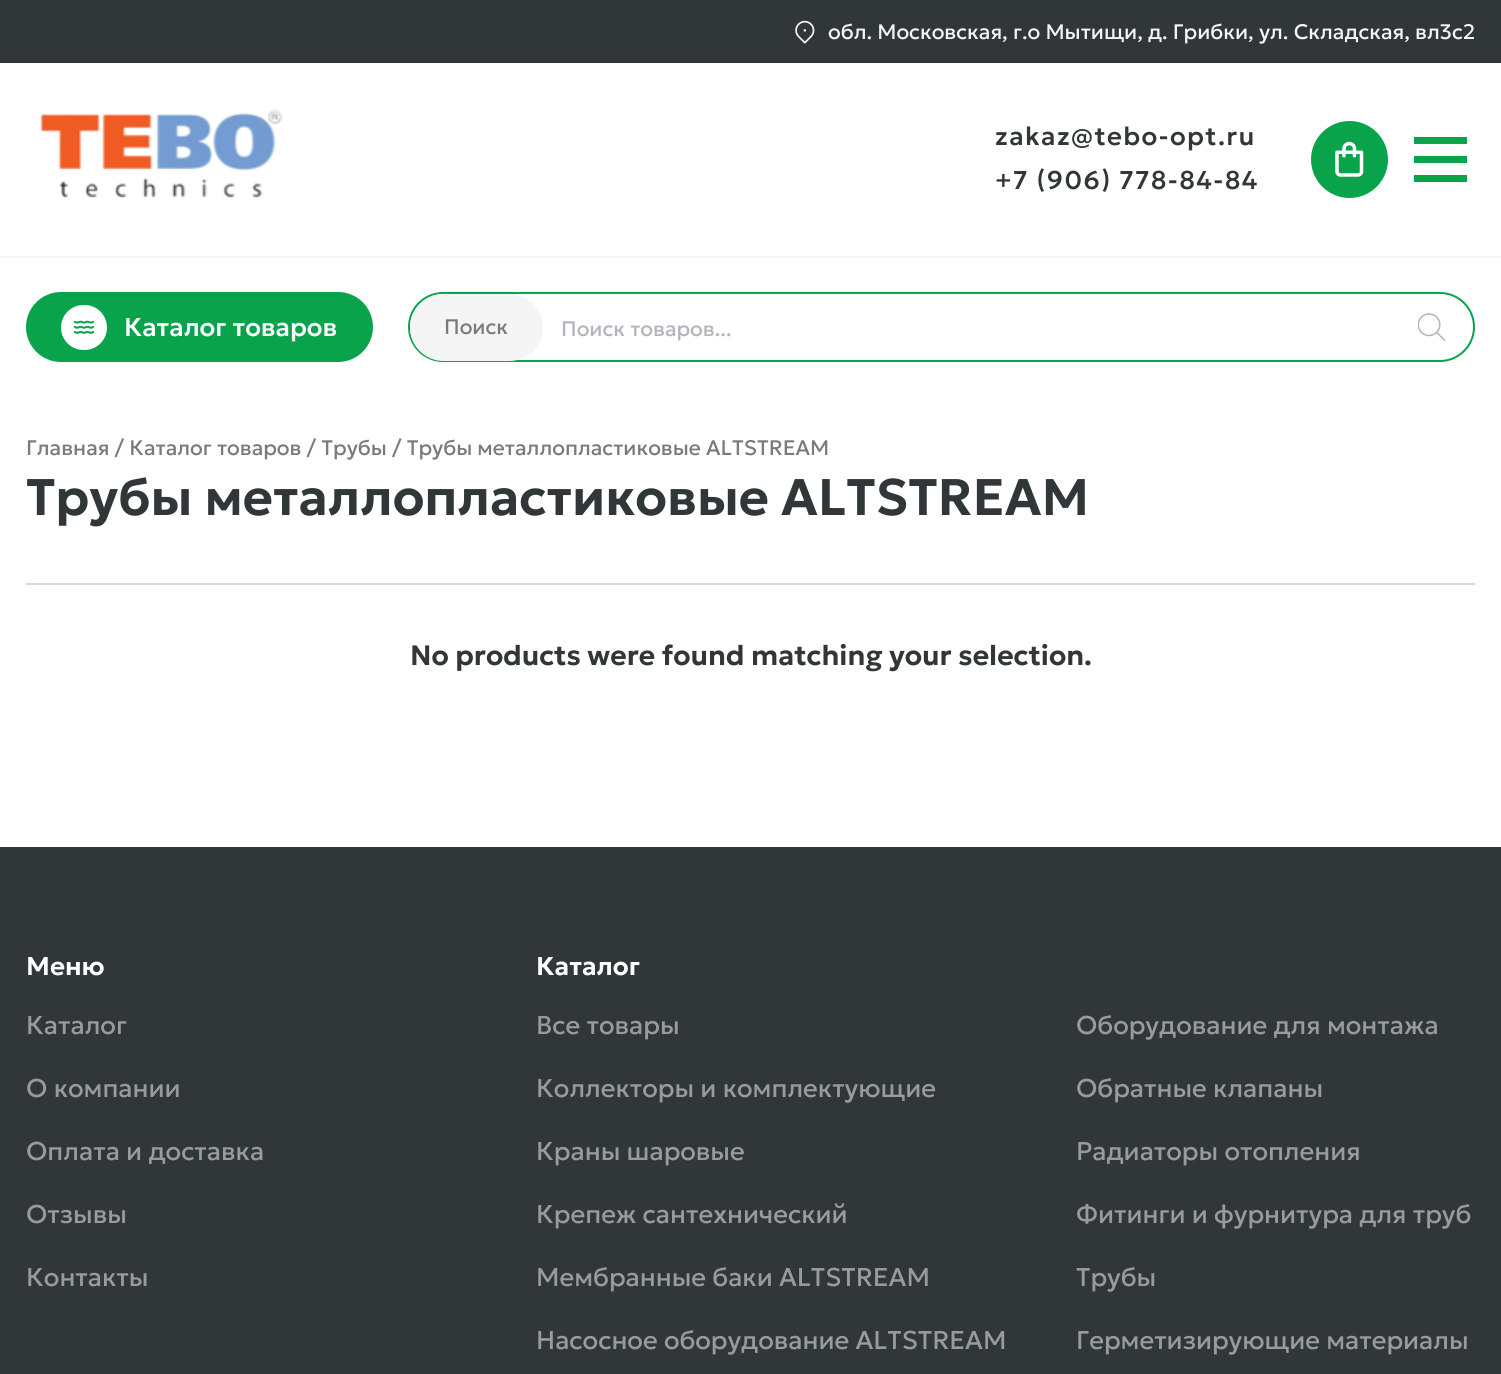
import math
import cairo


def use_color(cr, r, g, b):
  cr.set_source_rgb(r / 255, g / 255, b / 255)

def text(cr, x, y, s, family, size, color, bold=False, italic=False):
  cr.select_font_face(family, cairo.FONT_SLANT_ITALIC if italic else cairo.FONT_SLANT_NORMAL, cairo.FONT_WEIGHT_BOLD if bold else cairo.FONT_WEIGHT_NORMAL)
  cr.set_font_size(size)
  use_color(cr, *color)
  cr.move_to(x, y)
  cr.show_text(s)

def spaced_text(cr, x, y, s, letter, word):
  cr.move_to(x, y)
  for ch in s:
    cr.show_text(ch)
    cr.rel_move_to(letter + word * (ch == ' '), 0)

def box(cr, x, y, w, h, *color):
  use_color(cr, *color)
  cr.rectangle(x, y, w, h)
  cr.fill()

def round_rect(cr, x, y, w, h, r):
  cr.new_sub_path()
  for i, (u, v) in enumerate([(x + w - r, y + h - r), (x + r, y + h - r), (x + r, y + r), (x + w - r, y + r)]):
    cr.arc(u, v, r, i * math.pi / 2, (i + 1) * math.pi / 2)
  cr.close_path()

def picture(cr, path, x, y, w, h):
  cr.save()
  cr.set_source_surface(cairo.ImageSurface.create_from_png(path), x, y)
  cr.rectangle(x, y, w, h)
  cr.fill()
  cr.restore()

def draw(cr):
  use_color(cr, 255, 255, 255)
  cr.paint()
  box(cr, 0, 0, 1501, 63, 49, 55, 57)
  picture(cr, "img_01.png", 795, 20, 20, 24)
  picture(cr, "img_02.png", 40, 109, 243, 89)
  use_color(cr, 9, 163, 76)
  cr.arc(1349.5, 159.5, 38.5, 0, 2 * math.pi)
  cr.fill()
  picture(cr, "img_03.png", 1335, 141, 29, 36)
  box(cr, 1414, 137, 53, 7, 9, 163, 76)
  box(cr, 1414, 156, 53, 7, 9, 163, 76)
  box(cr, 1414, 175, 53, 7, 9, 163, 76)
  box(cr, 0, 256, 1501, 2, 245, 245, 245)
  use_color(cr, 9, 163, 76)
  round_rect(cr, 26, 292, 347, 70, 35)
  cr.fill()
  use_color(cr, 255, 255, 255)
  round_rect(cr, 61, 305, 46, 45, 22.5)
  cr.fill()
  picture(cr, "img_04.png", 73, 320, 22, 14)
  round_rect(cr, 409, 293, 1065, 68, 34)
  use_color(cr, 9, 163, 76)
  cr.stroke()
  use_color(cr, 245, 245, 245)
  round_rect(cr, 410, 294, 133, 67, 33.5)
  cr.fill()
  picture(cr, "img_05.png", 1418, 313, 28, 28)
  box(cr, 26, 583, 1449, 2, 217, 217, 220)
  box(cr, 0, 847, 1501, 527, 49, 55, 57)
  text(cr, 828, 39, "обл. Московская, г.о Мытищи, д. Грибки, ул. Складская, вл3с2", "Geologica", 21, (245, 245, 245))
  cr.select_font_face("Geologica Medium")
  cr.set_font_size(25.7)
  use_color(cr, 49, 55, 57)
  spaced_text(cr, 995, 145, "zakaz@tebo-opt.ru", 1.4, 0)
  spaced_text(cr, 995, 189, "+7 (906) 778-84-84", 1.4, 0)
  text(cr, 124, 336, "Каталог товаров", "Geologica Medium", 25.7, (255, 255, 255))
  text(cr, 444, 334, "Поиск", "Geologica", 21, (119, 123, 124))
  text(cr, 561, 336, "Поиск товаров...", "Geologica", 21, (178, 181, 188))
  text(cr, 26, 455, "Главная / Каталог товаров / Трубы / Трубы металлопластиковые ALTSTREAM", "Geologica", 21, (119, 123, 124))
  text(cr, 26, 515, "Трубы металлопластиковые ALTSTREAM", "Geologica SemiBold", 51.35, (49, 55, 57))
  text(cr, 410, 665, "No products were found matching your selection.", "Geologica SemiBold", 28, (49, 55, 57))
  text(cr, 26, 975, "Меню", "Geologica SemiBold", 25.7, (255, 255, 255))
  text(cr, 26, 1034, "Каталог", "Geologica", 25.7, (152, 155, 156))
  text(cr, 26, 1097, "О компании", "Geologica", 25.7, (152, 155, 156))
  text(cr, 26, 1160, "Оплата и доставка", "Geologica", 25.7, (152, 155, 156))
  text(cr, 26, 1223, "Отзывы", "Geologica", 25.7, (152, 155, 156))
  text(cr, 26, 1286, "Контакты", "Geologica", 25.7, (152, 155, 156))
  text(cr, 536, 975, "Каталог", "Geologica SemiBold", 25.7, (255, 255, 255))
  text(cr, 536, 1034, "Все товары", "Geologica", 25.7, (152, 155, 156))
  text(cr, 536, 1097, "Коллекторы и комплектующие", "Geologica", 25.7, (152, 155, 156))
  text(cr, 536, 1160, "Краны шаровые", "Geologica", 25.7, (152, 155, 156))
  text(cr, 536, 1223, "Крепеж сантехнический", "Geologica", 25.7, (152, 155, 156))
  text(cr, 536, 1286, "Мембранные баки ALTSTREAM", "Geologica", 25.7, (152, 155, 156))
  text(cr, 536, 1349, "Насосное оборудование ALTSTREAM", "Geologica", 25.7, (152, 155, 156))
  text(cr, 1076, 1034, "Оборудование для монтажа", "Geologica", 25.7, (152, 155, 156))
  text(cr, 1076, 1097, "Обратные клапаны", "Geologica", 25.7, (152, 155, 156))
  text(cr, 1076, 1160, "Радиаторы отопления", "Geologica", 25.7, (152, 155, 156))
  text(cr, 1076, 1223, "Фитинги и фурнитура для труб", "Geologica", 25.7, (152, 155, 156))
  text(cr, 1076, 1286, "Трубы", "Geologica", 25.7, (152, 155, 156))
  text(cr, 1076, 1349, "Герметизирующие материалы", "Geologica", 25.7, (152, 155, 156))


surface = cairo.ImageSurface(cairo.FORMAT_RGB24, 1501, 1374)
cr = cairo.Context(surface)
options = cairo.FontOptions()
options.set_hint_metrics(cairo.HINT_METRICS_OFF)
options.set_hint_style(cairo.HINT_STYLE_NONE)
cr.set_font_options(options)
cr.set_miter_limit(4)
draw(cr)
surface.write_to_png("out.png")
